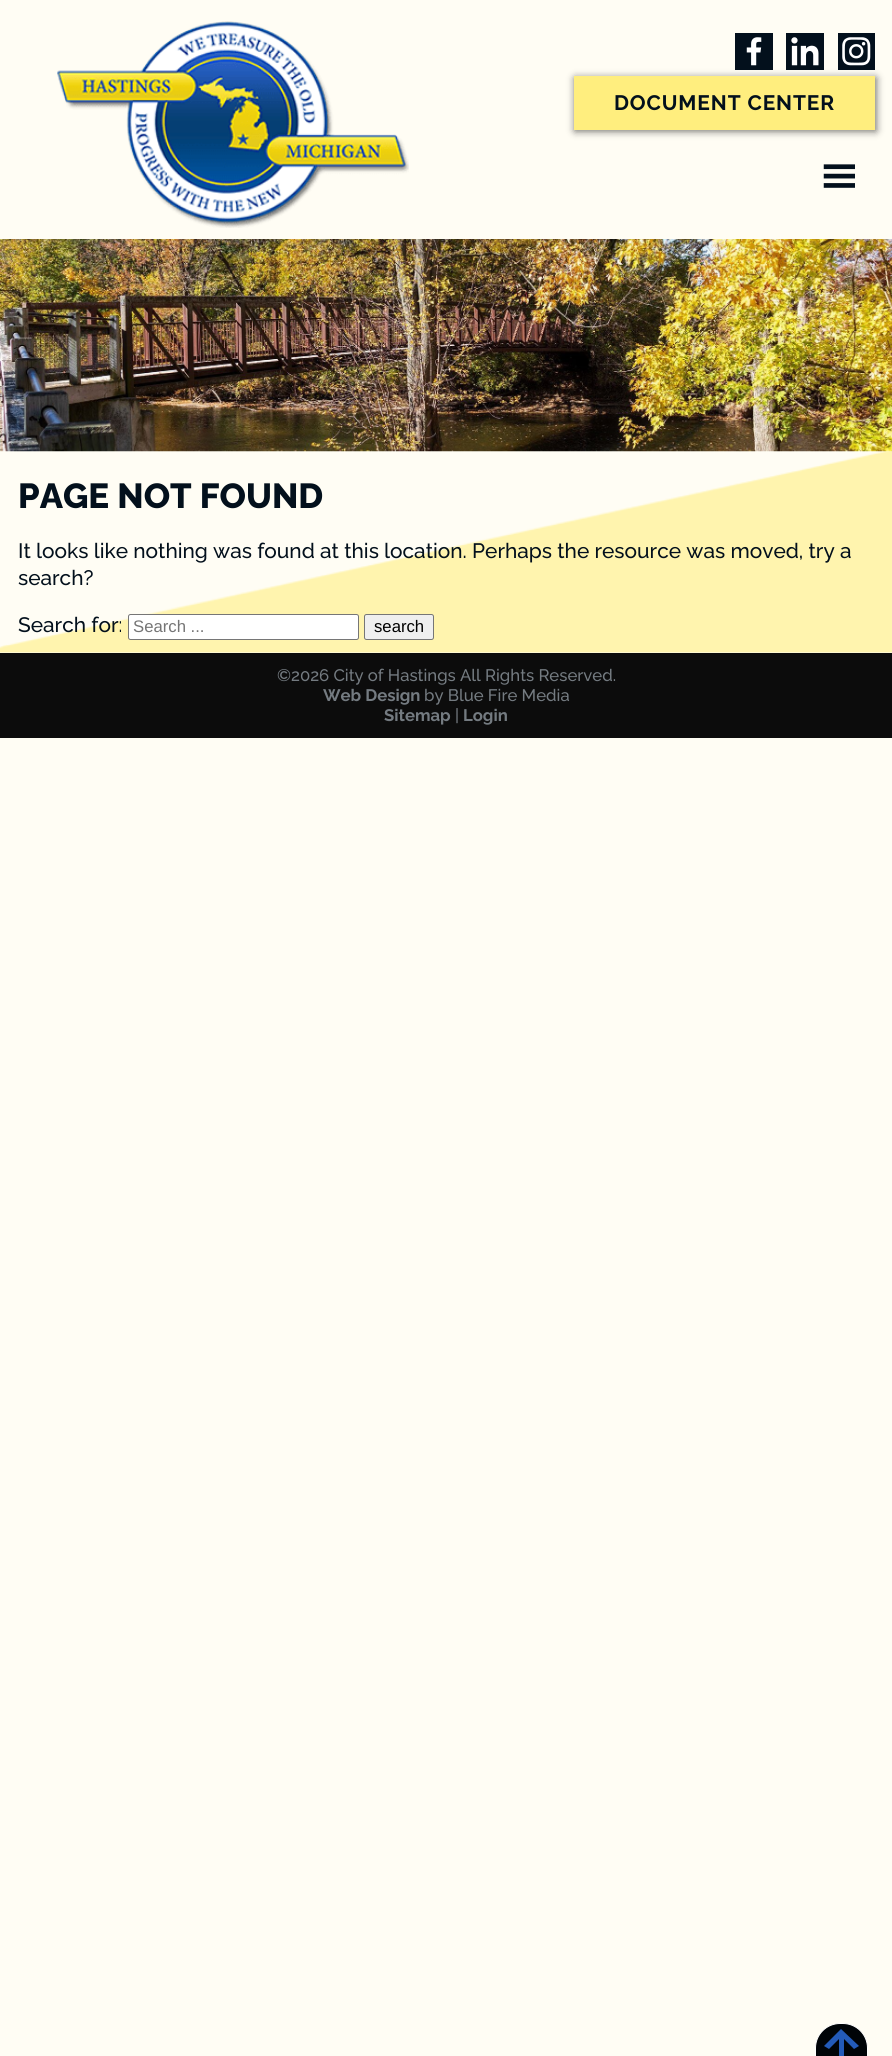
import math
import cairo


def use_color(cr, r, g, b):
  cr.set_source_rgb(r / 255, g / 255, b / 255)

def text(cr, x, y, s, family, size, color, bold=False, italic=False):
  cr.select_font_face(family, cairo.FONT_SLANT_ITALIC if italic else cairo.FONT_SLANT_NORMAL, cairo.FONT_WEIGHT_BOLD if bold else cairo.FONT_WEIGHT_NORMAL)
  cr.set_font_size(size)
  use_color(cr, *color)
  cr.move_to(x, y)
  cr.show_text(s)

def spaced_text(cr, x, y, s, letter, word):
  cr.move_to(x, y)
  for ch in s:
    cr.show_text(ch)
    cr.rel_move_to(letter + word * (ch == ' '), 0)

def box(cr, x, y, w, h, *color):
  use_color(cr, *color)
  cr.rectangle(x, y, w, h)
  cr.fill()

def round_rect(cr, x, y, w, h, r):
  cr.new_sub_path()
  for i, (u, v) in enumerate([(x + w - r, y + h - r), (x + r, y + h - r), (x + r, y + r), (x + w - r, y + r)]):
    cr.arc(u, v, r, i * math.pi / 2, (i + 1) * math.pi / 2)
  cr.close_path()

def shadow(cr, x, y, w, h, r, blur, alpha):
  cr.push_group_with_content(cairo.CONTENT_ALPHA)
  cr.set_operator(cairo.OPERATOR_SOURCE)
  for i in range(15, -16, -2):
    e = blur * i / 6
    if min(w, h) + 2 * e > 0:
      cr.set_source_rgba(0, 0, 0, alpha * math.erfc((i - 1) / 8.5) / 2)
      round_rect(cr, x - e, y - e, w + 2 * e, h + 2 * e, max(0, min(r + e + blur * .6, min(w, h) / 2 + e)))
      cr.fill()
  cr.mask(cr.pop_group())

def picture(cr, path, x, y, w, h):
  cr.save()
  cr.set_source_surface(cairo.ImageSurface.create_from_png(path), x, y)
  cr.rectangle(x, y, w, h)
  cr.fill()
  cr.restore()

def draw(cr):
  use_color(cr, 255, 253, 244)
  cr.paint()
  picture(cr, "img_01.png", 57, 21, 352, 207)
  box(cr, 735, 33, 38, 37, 3, 16, 28)
  picture(cr, "img_02.png", 746, 37, 16, 29)
  box(cr, 786, 33, 38, 37, 3, 16, 28)
  picture(cr, "img_03.png", 791, 37, 28, 29)
  box(cr, 838, 33, 37, 37, 3, 16, 28)
  picture(cr, "img_04.png", 842, 37, 29, 29)
  use_color(cr, 0, 0, 0)
  shadow(cr, 575, 78, 301, 53, 0, 4, 0.6)
  box(cr, 574, 76, 301, 54, 255, 238, 126)
  picture(cr, "img_05.png", 823, 164, 32, 24)
  picture(cr, "img_07.png", 0, 451, 892, 202)
  picture(cr, "img_06.png", 0, 239, 892, 213)
  use_color(cr, 255, 255, 255)
  round_rect(cr, 128.5, 614.5, 230, 25, 2)
  cr.fill_preserve()
  use_color(cr, 118, 118, 118)
  cr.set_line_width(1)
  cr.stroke()
  use_color(cr, 239, 239, 239)
  round_rect(cr, 364.5, 614.5, 69, 25, 2)
  cr.fill_preserve()
  use_color(cr, 118, 118, 118)
  cr.stroke()
  box(cr, 0, 653, 892, 85, 12, 12, 12)
  use_color(cr, 0, 4, 7)
  cr.new_path()
  cr.move_to(840, 2023.5)
  cr.line_to(843, 2023.5)
  cr.curve_to(856.5, 2023.5, 867.5, 2034.5, 867.5, 2048)
  cr.line_to(867.5, 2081.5)
  cr.line_to(815.5, 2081.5)
  cr.line_to(815.5, 2048)
  cr.curve_to(815.5, 2034.5, 826.5, 2023.5, 840, 2023.5)
  cr.close_path()
  cr.fill_preserve()
  use_color(cr, 255, 255, 255)
  cr.stroke()
  use_color(cr, 35, 91, 185)
  cr.new_path()
  cr.move_to(844, 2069)
  cr.line_to(839, 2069)
  cr.line_to(839, 2039)
  cr.line_to(829, 2049)
  cr.line_to(824, 2046)
  cr.line_to(841, 2029)
  cr.line_to(859, 2046)
  cr.line_to(854, 2049)
  cr.line_to(844, 2039)
  cr.close_path()
  cr.fill()
  cr.select_font_face("Raleway", cairo.FONT_SLANT_NORMAL, cairo.FONT_WEIGHT_BOLD)
  cr.set_font_size(20.9)
  use_color(cr, 3, 16, 28)
  spaced_text(cr, 614, 110, "DOCUMENT CENTER", 0.9, 0)
  text(cr, 18, 508, "PAGE NOT FOUND", "Raleway ExtraBold", 34.75, (3, 16, 28))
  text(cr, 18, 558, "It looks like nothing was found at this location. Perhaps the resource was moved, try a", "Raleway Medium", 20.85, (3, 16, 28))
  text(cr, 18, 585, "search?", "Raleway Medium", 20.85, (3, 16, 28))
  text(cr, 18, 632, "Search for:", "Raleway Medium", 20.85, (3, 16, 28))
  text(cr, 133, 632, "Search ...", "Liberation Sans", 16.7, (117, 117, 117))
  text(cr, 374, 632, "search", "Liberation Sans", 16.7, (0, 0, 0))
  text(cr, 277, 681, "©2026 City of Hastings All Rights Reserved.", "Raleway Medium", 16.7, (116, 123, 129))
  text(cr, 323, 701, "Web Design", "Raleway", 16.7, (116, 123, 129), bold=True)
  text(cr, 424, 701, "by Blue Fire Media", "Raleway Medium", 16.7, (116, 123, 129))
  text(cr, 384, 721, "Sitemap", "Raleway", 16.7, (116, 123, 129), bold=True)
  text(cr, 455, 721, "|", "Raleway Medium", 16.7, (116, 123, 129))
  text(cr, 463, 721, "Login", "Raleway", 16.7, (116, 123, 129), bold=True)


surface = cairo.ImageSurface(cairo.FORMAT_RGB24, 892, 2056)
cr = cairo.Context(surface)
options = cairo.FontOptions()
options.set_hint_metrics(cairo.HINT_METRICS_OFF)
options.set_hint_style(cairo.HINT_STYLE_NONE)
cr.set_font_options(options)
cr.set_miter_limit(4)
draw(cr)
surface.write_to_png("out.png")
